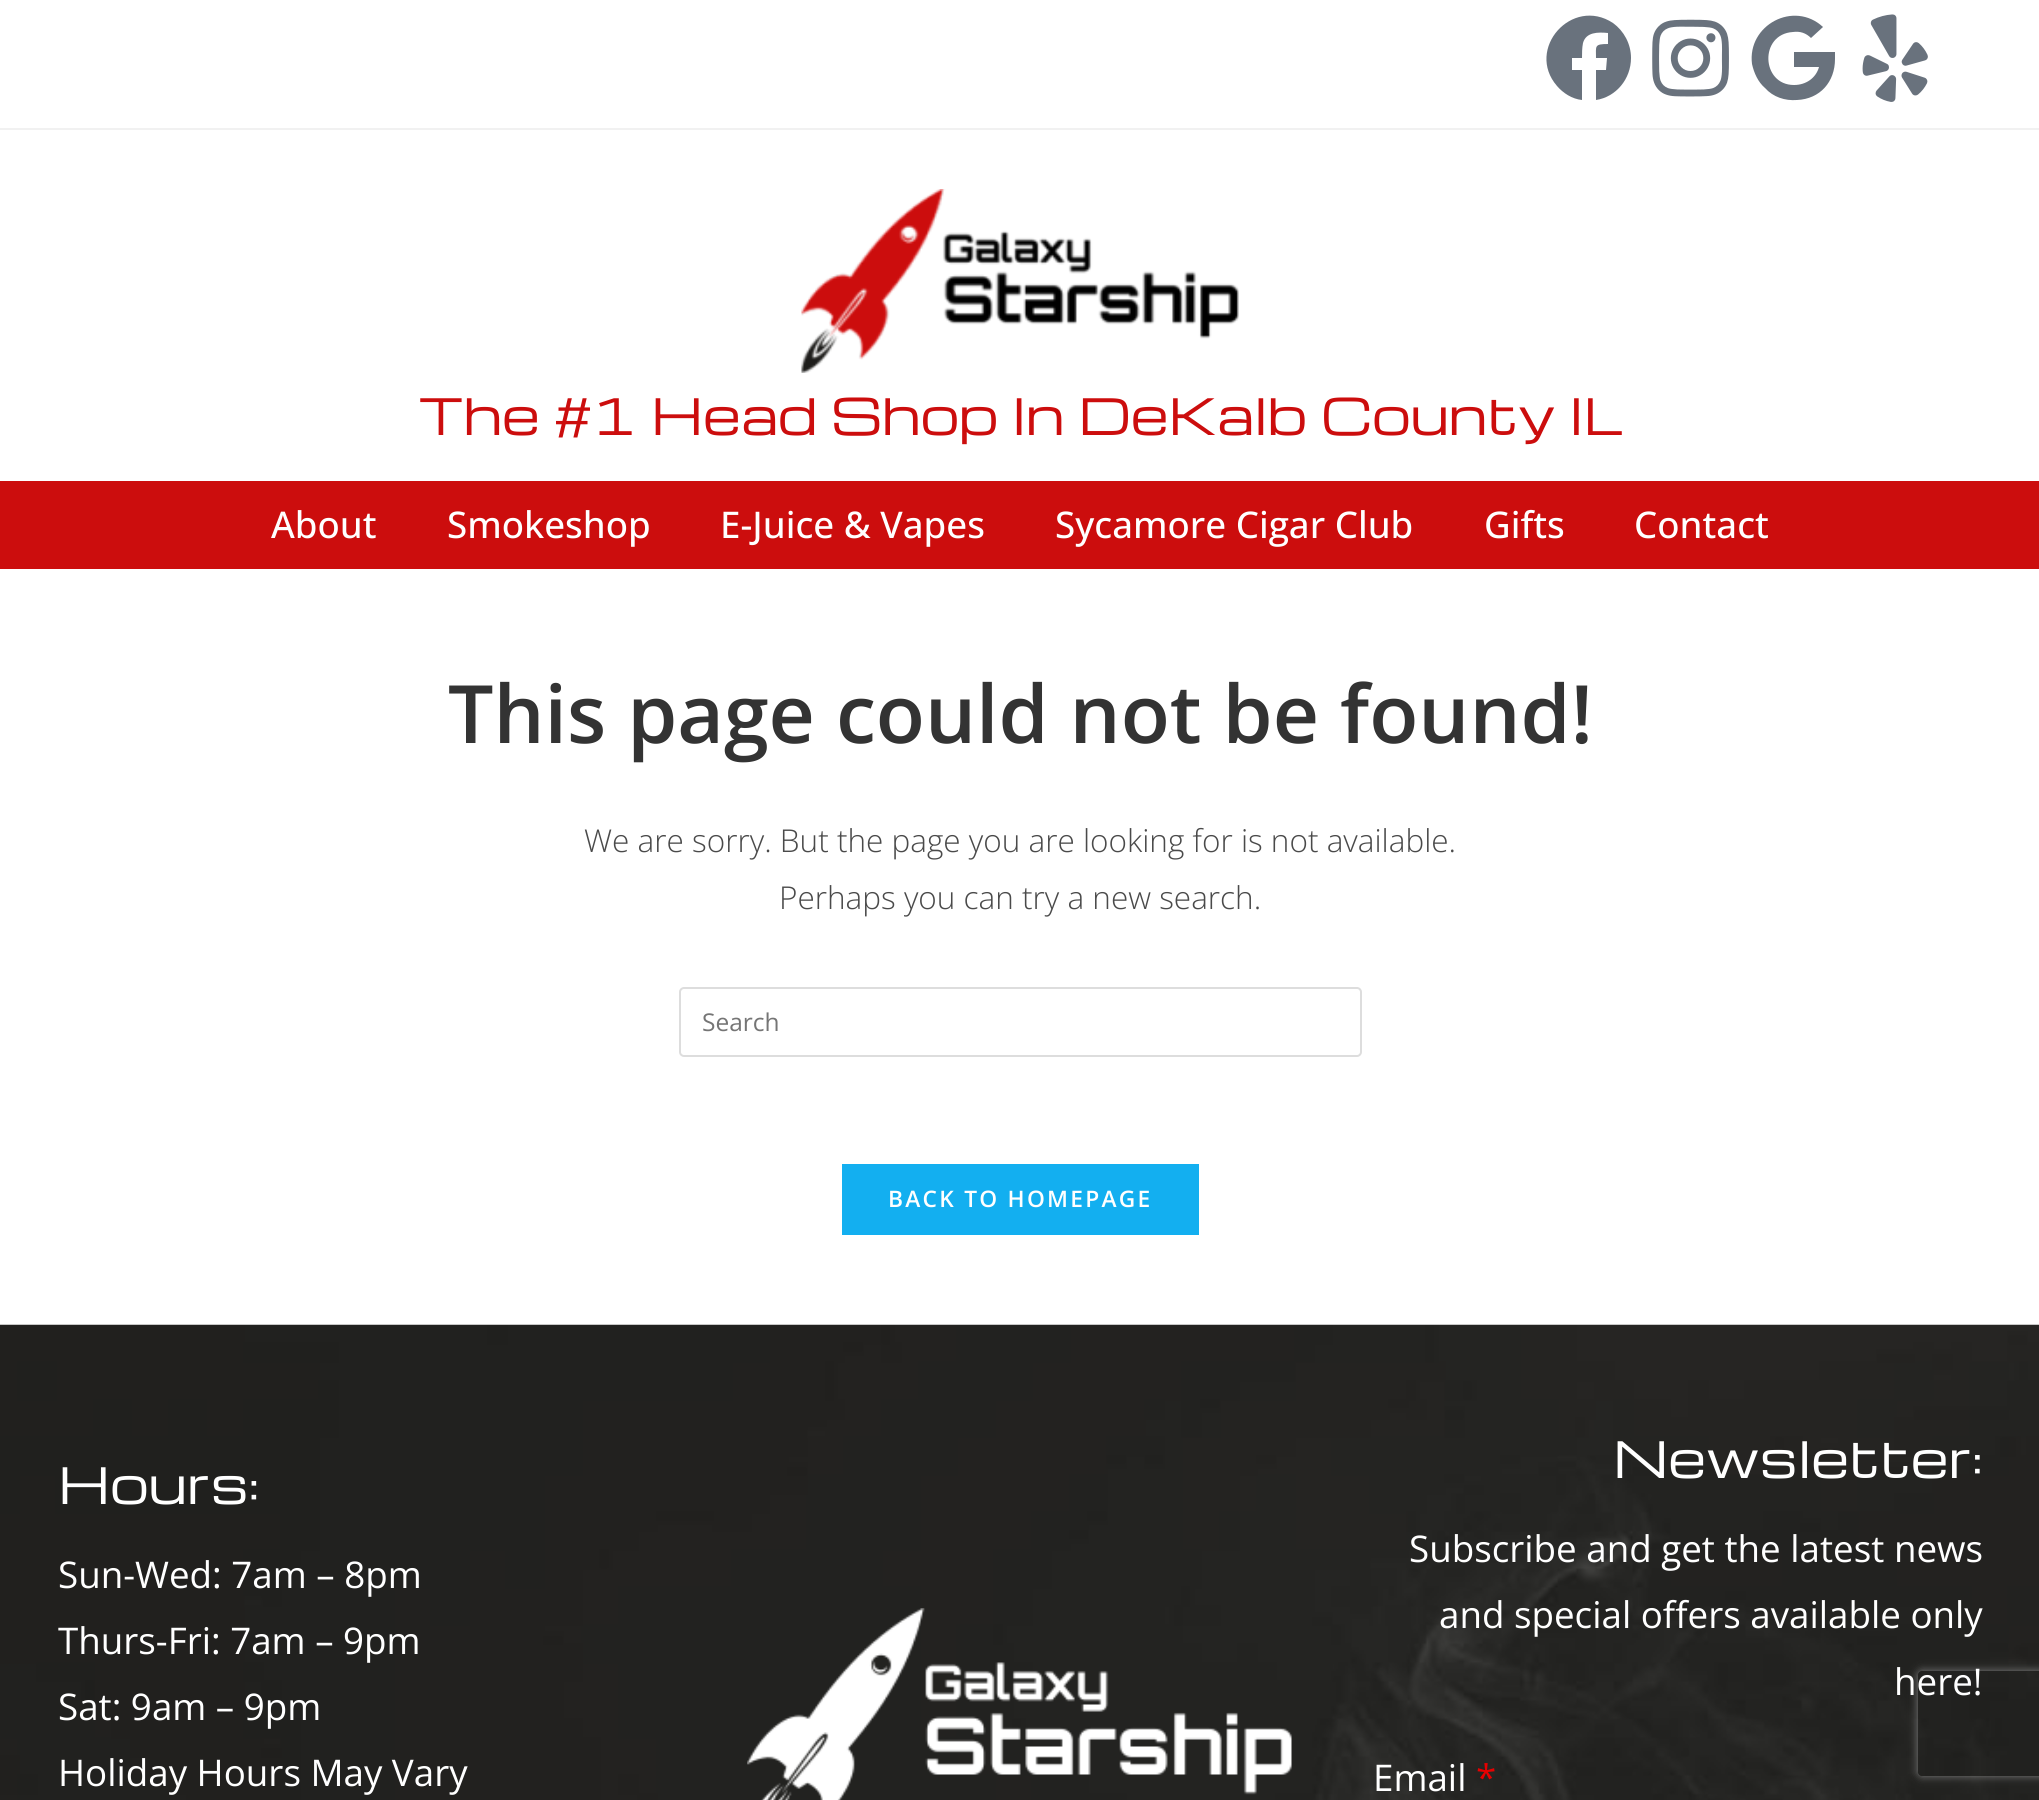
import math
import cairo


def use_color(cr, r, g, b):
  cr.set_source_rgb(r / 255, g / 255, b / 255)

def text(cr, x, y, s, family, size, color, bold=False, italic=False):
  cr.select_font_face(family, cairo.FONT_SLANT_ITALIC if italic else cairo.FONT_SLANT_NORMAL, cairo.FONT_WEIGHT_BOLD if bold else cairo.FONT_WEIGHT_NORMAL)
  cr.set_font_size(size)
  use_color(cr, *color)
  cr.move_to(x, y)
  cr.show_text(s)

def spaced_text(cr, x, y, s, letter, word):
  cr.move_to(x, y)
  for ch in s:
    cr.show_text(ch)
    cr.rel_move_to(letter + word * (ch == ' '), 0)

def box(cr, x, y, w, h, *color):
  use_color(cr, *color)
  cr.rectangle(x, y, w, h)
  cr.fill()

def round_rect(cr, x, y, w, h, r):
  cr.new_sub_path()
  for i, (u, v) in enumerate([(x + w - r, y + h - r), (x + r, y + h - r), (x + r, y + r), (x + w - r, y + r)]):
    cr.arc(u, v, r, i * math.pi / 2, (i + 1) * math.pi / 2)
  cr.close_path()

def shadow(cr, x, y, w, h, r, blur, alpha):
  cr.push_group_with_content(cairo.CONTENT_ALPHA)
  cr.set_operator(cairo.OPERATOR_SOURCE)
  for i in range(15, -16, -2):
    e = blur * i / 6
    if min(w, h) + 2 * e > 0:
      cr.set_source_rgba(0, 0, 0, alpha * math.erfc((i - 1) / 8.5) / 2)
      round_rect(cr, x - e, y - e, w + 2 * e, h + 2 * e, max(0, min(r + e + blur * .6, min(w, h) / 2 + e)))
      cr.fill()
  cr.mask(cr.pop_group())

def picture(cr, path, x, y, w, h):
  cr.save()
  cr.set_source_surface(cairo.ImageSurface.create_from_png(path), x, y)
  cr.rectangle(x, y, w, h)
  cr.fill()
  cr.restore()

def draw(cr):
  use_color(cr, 255, 255, 255)
  cr.paint()
  box(cr, 0, 128, 2039, 2, 241, 241, 241)
  use_color(cr, 105, 114, 125)
  cr.new_path()
  cr.move_to(1631, 58)
  cr.curve_to(1631, 79, 1616, 97, 1596, 100)
  cr.line_to(1596, 70)
  cr.line_to(1606, 70)
  cr.line_to(1607, 58)
  cr.line_to(1596, 58)
  cr.curve_to(1596, 46, 1594, 44, 1608, 44)
  cr.line_to(1608, 33)
  cr.curve_to(1598, 32, 1586, 32, 1583, 43)
  cr.curve_to(1582, 48, 1582, 53, 1582, 58)
  cr.line_to(1572, 58)
  cr.line_to(1572, 70)
  cr.line_to(1582, 70)
  cr.line_to(1582, 100)
  cr.curve_to(1572, 99, 1563, 93, 1557, 86)
  cr.curve_to(1525, 49, 1572, -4, 1613, 23)
  cr.curve_to(1624, 31, 1631, 44, 1631, 58)
  cr.close_path()
  cr.fill()
  picture(cr, "img_01.png", 1652, 19, 77, 78)
  cr.new_path()
  cr.move_to(1835, 59)
  cr.curve_to(1835, 82, 1820, 99, 1797, 100)
  cr.curve_to(1785, 101, 1773, 97, 1765, 88)
  cr.curve_to(1758, 82, 1754, 73, 1752, 64)
  cr.curve_to(1747, 25, 1794, 0, 1823, 27)
  cr.line_to(1811, 38)
  cr.curve_to(1806, 33, 1800, 31, 1793, 32)
  cr.curve_to(1759, 34, 1761, 85, 1794, 85)
  cr.curve_to(1806, 85, 1816, 78, 1819, 67)
  cr.line_to(1794, 67)
  cr.line_to(1794, 52)
  cr.line_to(1835, 52)
  cr.close_path()
  cr.fill()
  picture(cr, "img_02.png", 1862, 14, 66, 88)
  picture(cr, "img_03.png", 801, 189, 438, 184)
  box(cr, 0, 481, 2039, 88, 204, 13, 13)
  round_rect(cr, 680, 988, 681, 68, 4)
  use_color(cr, 221, 221, 221)
  cr.stroke()
  box(cr, 842, 1164, 357, 71, 19, 175, 240)
  picture(cr, "img_04.png", 0, 1324, 2039, 476)
  picture(cr, "img_05.png", 747, 1608, 545, 192)
  cr.save()
  cr.set_fill_rule(cairo.FILL_RULE_EVEN_ODD)
  cr.new_path()
  cr.move_to(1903, 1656)
  cr.line_to(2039, 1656)
  cr.line_to(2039, 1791)
  cr.line_to(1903, 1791)
  cr.close_path()
  cr.move_to(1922, 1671)
  cr.line_to(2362, 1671)
  cr.curve_to(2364, 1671, 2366, 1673, 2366, 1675)
  cr.line_to(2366, 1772)
  cr.curve_to(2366, 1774, 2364, 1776, 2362, 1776)
  cr.line_to(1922, 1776)
  cr.curve_to(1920, 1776, 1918, 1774, 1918, 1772)
  cr.line_to(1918, 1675)
  cr.curve_to(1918, 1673, 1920, 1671, 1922, 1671)
  cr.close_path()
  cr.clip()
  use_color(cr, 128, 128, 128)
  shadow(cr, 1918, 1671, 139, 105, 4, 4.5, 1)
  cr.restore()
  text(cr, 418, 435, "The #1 Head Shop In DeKalb County IL", "Michroma", 49, (204, 13, 13))
  text(cr, 271, 538, "About", "Open Sans Medium", 36.75, (255, 255, 255))
  text(cr, 447, 538, "Smokeshop", "Open Sans Medium", 36.75, (255, 255, 255))
  text(cr, 720, 538, "E-Juice & Vapes", "Open Sans Medium", 36.75, (255, 255, 255))
  text(cr, 1055, 538, "Sycamore Cigar Club", "Open Sans Medium", 36.75, (255, 255, 255))
  text(cr, 1484, 538, "Gifts", "Open Sans Medium", 36.75, (255, 255, 255))
  text(cr, 1634, 538, "Contact", "Open Sans Medium", 36.75, (255, 255, 255))
  text(cr, 448, 743, "This page could not be found!", "Open Sans SemiBold", 80.5, (51, 51, 51))
  text(cr, 584, 852, "We are sorry. But the page you are looking for is not available.", "Open Sans Light", 31.5, (74, 74, 74))
  text(cr, 779, 909, "Perhaps you can try a new search.", "Open Sans Light", 31.5, (74, 74, 74))
  text(cr, 702, 1031, "Search", "Open Sans", 24.5, (117, 117, 117))
  cr.select_font_face("Open Sans SemiBold")
  cr.set_font_size(22.75)
  use_color(cr, 255, 255, 255)
  spaced_text(cr, 888, 1207, "BACK TO HOMEPAGE", 2.25, 0)
  text(cr, 58, 1504, "Hours:", "Michroma", 49, (255, 255, 255))
  text(cr, 58, 1588, "Sun-Wed: 7am – 8pm", "Open Sans", 36.75, (255, 255, 255))
  text(cr, 58, 1654, "Thurs-Fri: 7am – 9pm", "Open Sans", 36.75, (255, 255, 255))
  text(cr, 58, 1720, "Sat: 9am – 9pm", "Open Sans", 36.75, (255, 255, 255))
  text(cr, 58, 1786, "Holiday Hours May Vary", "Open Sans", 36.75, (255, 255, 255))
  text(cr, 1613, 1478, "Newsletter:", "Michroma", 49, (255, 255, 255))
  text(cr, 1409, 1562, "Subscribe and get the latest news", "Open Sans", 36.75, (255, 255, 255))
  text(cr, 1439, 1628, "and special offers available only", "Open Sans", 36.75, (255, 255, 255))
  text(cr, 1894, 1695, "here!", "Open Sans", 36.75, (255, 255, 255))
  text(cr, 1373, 1791, "Email", "Open Sans", 36.75, (255, 255, 255))
  text(cr, 1476, 1791, "*", "Open Sans", 36.75, (232, 0, 0))


surface = cairo.ImageSurface(cairo.FORMAT_RGB24, 2039, 1800)
cr = cairo.Context(surface)
options = cairo.FontOptions()
options.set_hint_metrics(cairo.HINT_METRICS_OFF)
options.set_hint_style(cairo.HINT_STYLE_NONE)
cr.set_font_options(options)
cr.set_miter_limit(4)
draw(cr)
surface.write_to_png("out.png")
